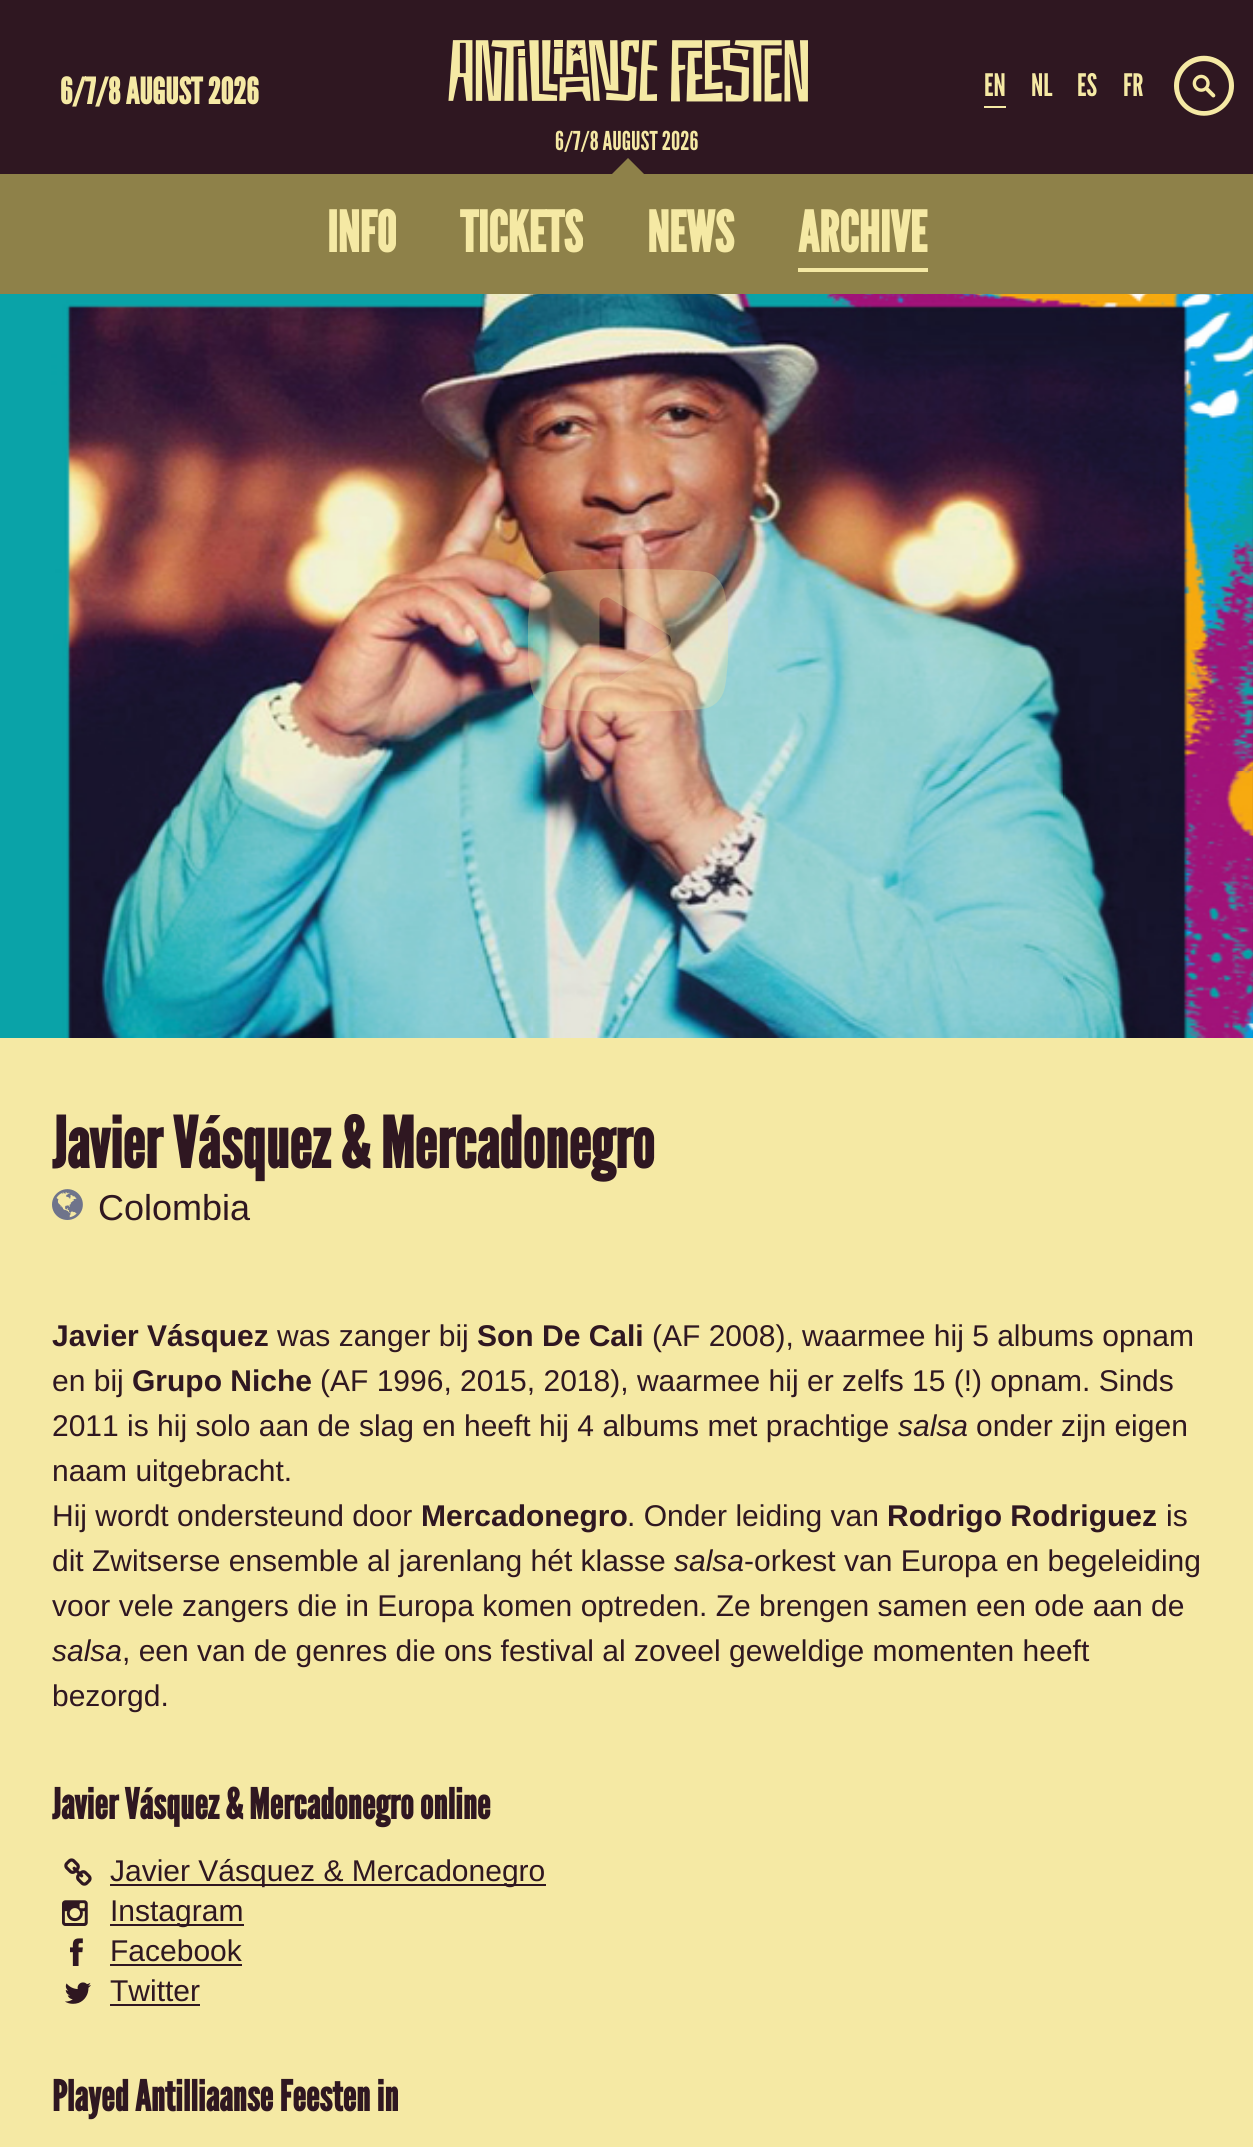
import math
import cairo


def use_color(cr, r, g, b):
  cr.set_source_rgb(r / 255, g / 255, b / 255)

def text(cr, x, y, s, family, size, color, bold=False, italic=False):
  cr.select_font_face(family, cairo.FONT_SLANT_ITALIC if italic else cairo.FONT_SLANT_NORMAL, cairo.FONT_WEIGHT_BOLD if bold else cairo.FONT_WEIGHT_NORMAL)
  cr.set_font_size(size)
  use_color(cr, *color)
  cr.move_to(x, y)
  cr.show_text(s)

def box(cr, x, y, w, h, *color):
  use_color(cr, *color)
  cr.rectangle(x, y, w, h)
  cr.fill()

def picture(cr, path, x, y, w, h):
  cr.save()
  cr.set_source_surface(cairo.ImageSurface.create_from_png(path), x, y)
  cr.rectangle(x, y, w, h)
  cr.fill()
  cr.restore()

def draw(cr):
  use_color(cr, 47, 23, 33)
  cr.paint()
  box(cr, 984, 106, 22, 2, 245, 233, 164)
  picture(cr, "img_01.png", 1174, 55, 60, 61)
  picture(cr, "img_02.png", 448, 40, 360, 62)
  box(cr, 0, 174, 1253, 120, 142, 129, 73)
  cr.new_path()
  cr.move_to(646, 176)
  cr.line_to(610, 176)
  cr.line_to(628, 158)
  cr.close_path()
  cr.fill()
  box(cr, 798, 268, 130, 4, 245, 233, 164)
  picture(cr, "img_03.png", 0, 294, 1253, 744)
  picture(cr, "img_04.png", 528, 569, 200, 143)
  box(cr, 0, 1038, 1253, 1109, 245, 233, 164)
  picture(cr, "img_05.png", 52, 1189, 31, 31)
  picture(cr, "img_06.png", 64, 1858, 28, 28)
  box(cr, 110, 1884, 436, 2, 47, 23, 33)
  picture(cr, "img_07.png", 62, 1900, 26, 26)
  box(cr, 110, 1924, 134, 2, 47, 23, 33)
  picture(cr, "img_08.png", 70, 1938, 13, 28)
  box(cr, 110, 1964, 132, 2, 47, 23, 33)
  picture(cr, "img_09.png", 65, 1982, 26, 22)
  box(cr, 110, 2004, 90, 2, 47, 23, 33)
  text(cr, 60, 104, "6/7/8 AUGUST 2026", "League Gothic", 36, (245, 233, 164), bold=True)
  text(cr, 984, 96, "EN", "League Gothic", 31, (245, 233, 164))
  text(cr, 1031, 96, "NL", "League Gothic", 31, (245, 233, 164))
  text(cr, 1077, 96, "ES", "League Gothic", 31, (245, 233, 164))
  text(cr, 1123, 96, "FR", "League Gothic", 31, (245, 233, 164))
  text(cr, 555, 150, "6/7/8 AUGUST 2026", "League Gothic", 26, (245, 233, 164))
  text(cr, 327, 252, "INFO", "League Gothic", 56, (245, 233, 164), bold=True)
  text(cr, 460, 252, "TICKETS", "League Gothic", 56, (245, 233, 164), bold=True)
  text(cr, 647, 252, "NEWS", "League Gothic", 56, (245, 233, 164), bold=True)
  text(cr, 798, 252, "ARCHIVE", "League Gothic", 56, (245, 233, 164), bold=True)
  text(cr, 52, 1168, "Javier Vásquez & Mercadonegro", "League Gothic", 70, (47, 23, 33), bold=True)
  text(cr, 98, 1220, "Colombia", "Liberation Sans", 36, (47, 23, 33))
  text(cr, 52, 1346, "Javier Vásquez", "Liberation Sans", 30, (47, 23, 33), bold=True)
  text(cr, 277, 1346, "was zanger bij", "Liberation Sans", 30, (47, 23, 33))
  text(cr, 477, 1346, "Son De Cali", "Liberation Sans", 30, (47, 23, 33), bold=True)
  text(cr, 652, 1346, "(AF 2008), waarmee hij 5 albums opnam", "Liberation Sans", 30, (47, 23, 33))
  text(cr, 52, 1391, "en bij", "Liberation Sans", 30, (47, 23, 33))
  text(cr, 132, 1391, "Grupo Niche", "Liberation Sans", 30, (47, 23, 33), bold=True)
  text(cr, 320, 1391, "(AF 1996, 2015, 2018), waarmee hij er zelfs 15 (!) opnam. Sinds", "Liberation Sans", 30, (47, 23, 33))
  text(cr, 52, 1436, "2011 is hij solo aan de slag en heeft hij 4 albums met prachtige", "Liberation Sans", 30, (47, 23, 33))
  text(cr, 898, 1436, "salsa", "Liberation Sans", 30, (47, 23, 33), italic=True)
  text(cr, 976, 1436, "onder zijn eigen", "Liberation Sans", 30, (47, 23, 33))
  text(cr, 52, 1481, "naam uitgebracht.", "Liberation Sans", 30, (47, 23, 33))
  text(cr, 52, 1526, "Hij wordt ondersteund door", "Liberation Sans", 30, (47, 23, 33))
  text(cr, 421, 1526, "Mercadonegro", "Liberation Sans", 30, (47, 23, 33), bold=True)
  text(cr, 627, 1526, ". Onder leiding van", "Liberation Sans", 30, (47, 23, 33))
  text(cr, 887, 1526, "Rodrigo Rodriguez", "Liberation Sans", 30, (47, 23, 33), bold=True)
  text(cr, 1166, 1526, "is", "Liberation Sans", 30, (47, 23, 33))
  text(cr, 52, 1571, "dit Zwitserse ensemble al jarenlang hét klasse", "Liberation Sans", 30, (47, 23, 33))
  text(cr, 674, 1571, "salsa", "Liberation Sans", 30, (47, 23, 33), italic=True)
  text(cr, 744, 1571, "-orkest van Europa en begeleiding", "Liberation Sans", 30, (47, 23, 33))
  text(cr, 52, 1616, "voor vele zangers die in Europa komen optreden. Ze brengen samen een ode aan de", "Liberation Sans", 30, (47, 23, 33))
  text(cr, 52, 1661, "salsa", "Liberation Sans", 30, (47, 23, 33), italic=True)
  text(cr, 122, 1661, ", een van de genres die ons festival al zoveel geweldige momenten heeft", "Liberation Sans", 30, (47, 23, 33))
  text(cr, 52, 1706, "bezorgd.", "Liberation Sans", 30, (47, 23, 33))
  text(cr, 52, 1819, "Javier Vásquez & Mercadonegro online", "League Gothic", 42, (47, 23, 33), bold=True)
  text(cr, 110, 1881, "Javier Vásquez & Mercadonegro", "Liberation Sans", 30, (47, 23, 33))
  text(cr, 110, 1921, "Instagram", "Liberation Sans", 30, (47, 23, 33))
  text(cr, 110, 1961, "Facebook", "Liberation Sans", 30, (47, 23, 33))
  text(cr, 110, 2001, "Twitter", "Liberation Sans", 30, (47, 23, 33))
  text(cr, 52, 2111, "Played Antilliaanse Feesten in", "League Gothic", 42, (47, 23, 33), bold=True)


surface = cairo.ImageSurface(cairo.FORMAT_RGB24, 1253, 2147)
cr = cairo.Context(surface)
options = cairo.FontOptions()
options.set_hint_metrics(cairo.HINT_METRICS_OFF)
options.set_hint_style(cairo.HINT_STYLE_NONE)
cr.set_font_options(options)
cr.set_miter_limit(4)
draw(cr)
surface.write_to_png("out.png")
